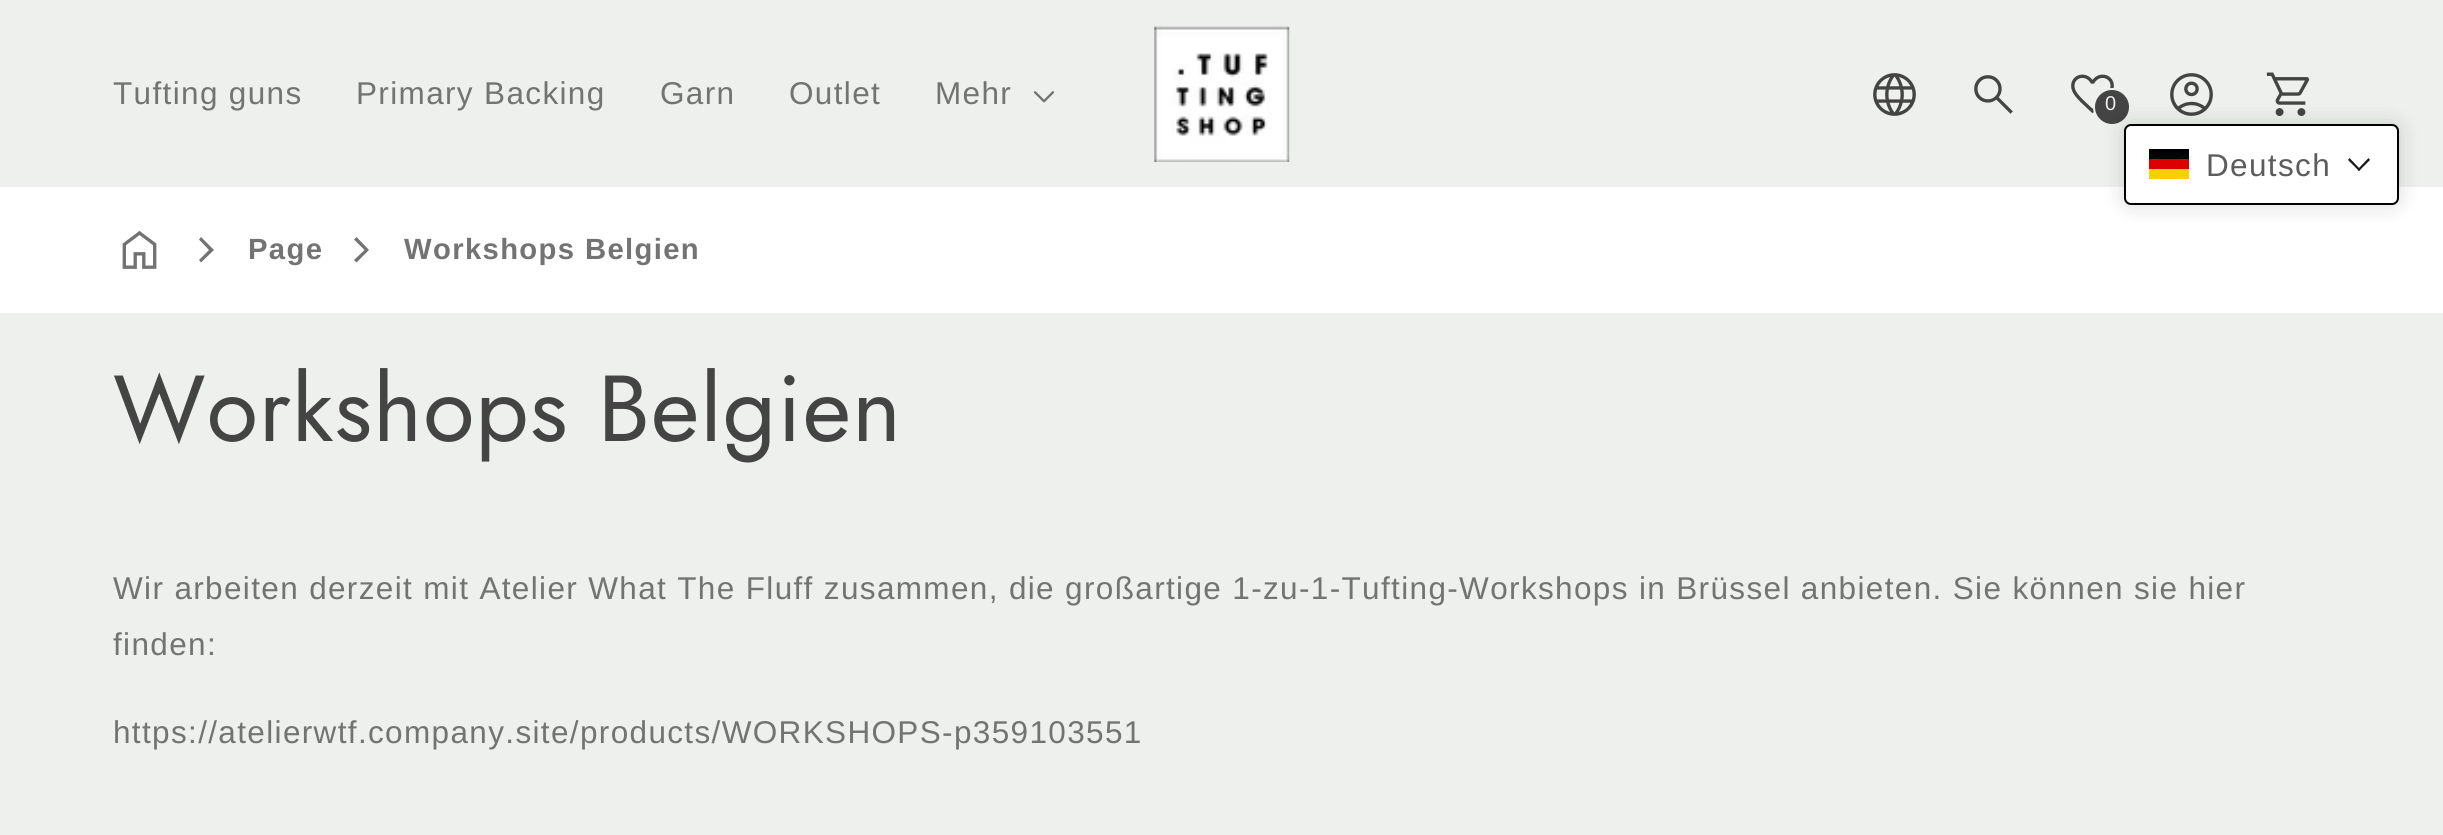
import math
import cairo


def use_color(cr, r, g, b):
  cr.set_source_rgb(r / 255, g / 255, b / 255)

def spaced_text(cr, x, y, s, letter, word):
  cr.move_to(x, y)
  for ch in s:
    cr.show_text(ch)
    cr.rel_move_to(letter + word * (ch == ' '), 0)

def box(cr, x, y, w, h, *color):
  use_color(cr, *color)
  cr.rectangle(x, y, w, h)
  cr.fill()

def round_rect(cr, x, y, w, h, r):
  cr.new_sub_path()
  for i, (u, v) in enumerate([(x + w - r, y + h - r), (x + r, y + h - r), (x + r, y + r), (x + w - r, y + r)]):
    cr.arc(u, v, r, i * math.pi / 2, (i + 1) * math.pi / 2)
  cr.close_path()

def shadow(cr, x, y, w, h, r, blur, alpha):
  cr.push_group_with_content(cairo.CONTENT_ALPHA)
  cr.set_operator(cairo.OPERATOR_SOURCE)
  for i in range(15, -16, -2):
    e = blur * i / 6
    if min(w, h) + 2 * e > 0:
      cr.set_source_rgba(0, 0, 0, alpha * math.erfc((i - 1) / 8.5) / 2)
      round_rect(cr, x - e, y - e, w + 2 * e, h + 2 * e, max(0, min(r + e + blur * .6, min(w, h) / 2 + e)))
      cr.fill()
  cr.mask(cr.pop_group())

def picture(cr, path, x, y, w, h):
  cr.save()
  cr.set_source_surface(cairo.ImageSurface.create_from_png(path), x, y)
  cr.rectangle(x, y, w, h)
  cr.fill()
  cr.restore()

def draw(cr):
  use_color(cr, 237, 240, 237)
  cr.paint()
  picture(cr, "img_01.png", 1033, 91, 22, 12)
  picture(cr, "img_02.png", 1154, 26, 136, 136)
  picture(cr, "img_03.png", 1873, 73, 43, 43)
  picture(cr, "img_04.png", 1974, 75, 39, 39)
  picture(cr, "img_05.png", 2071, 74, 43, 40)
  use_color(cr, 69, 68, 68)
  cr.arc(2112, 107, 18, 0, 2 * math.pi)
  cr.fill_preserve()
  use_color(cr, 237, 240, 237)
  cr.stroke()
  picture(cr, "img_06.png", 2170, 73, 43, 43)
  picture(cr, "img_07.png", 2266, 72, 44, 44)
  box(cr, 0, 187, 2443, 126, 255, 255, 255)
  use_color(cr, 0, 0, 0)
  shadow(cr, 2124, 124, 275, 81, 7, 11, 0.15)
  use_color(cr, 255, 255, 255)
  round_rect(cr, 2125, 125, 273, 79, 6)
  cr.fill_preserve()
  use_color(cr, 0, 0, 0)
  cr.stroke()
  box(cr, 2149, 169, 40, 10, 255, 206, 0)
  box(cr, 2149, 149, 40, 10, 0, 0, 0)
  box(cr, 2149, 159, 40, 10, 221, 0, 0)
  use_color(cr, 26, 26, 26)
  cr.new_path()
  cr.move_to(2368.5, 158)
  cr.line_to(2370, 160)
  cr.line_to(2359, 171)
  cr.line_to(2357.5, 169.5)
  cr.close_path()
  cr.fill()
  cr.new_path()
  cr.move_to(2349.5, 158)
  cr.line_to(2360.5, 169.5)
  cr.line_to(2359, 171)
  cr.line_to(2348, 160)
  cr.close_path()
  cr.fill()
  picture(cr, "img_08.png", 122, 231, 35, 38)
  use_color(cr, 116, 115, 115)
  cr.new_path()
  cr.move_to(209, 250)
  cr.line_to(199, 239.5)
  cr.line_to(201, 237)
  cr.line_to(214, 250)
  cr.line_to(201, 262.5)
  cr.line_to(199, 260)
  cr.close_path()
  cr.fill()
  cr.new_path()
  cr.move_to(364.5, 250)
  cr.line_to(354, 239.5)
  cr.line_to(356.5, 237)
  cr.line_to(369, 250)
  cr.line_to(356.5, 262.5)
  cr.line_to(354, 260)
  cr.close_path()
  cr.fill()
  cr.select_font_face("Liberation Sans")
  cr.set_font_size(31.5)
  spaced_text(cr, 113, 104, "Tufting guns", 1.35, 0)
  spaced_text(cr, 356, 104, "Primary Backing", 1.35, 0)
  spaced_text(cr, 660, 104, "Garn", 1.35, 0)
  spaced_text(cr, 789, 104, "Outlet", 1.35, 0)
  spaced_text(cr, 935, 104, "Mehr", 1.35, 0)
  cr.set_font_size(20)
  use_color(cr, 237, 240, 237)
  spaced_text(cr, 2105, 110, "0", 1.35, 0)
  cr.set_font_size(31.5)
  use_color(cr, 92, 92, 92)
  spaced_text(cr, 2206, 176, "Deutsch", 1.35, 0)
  cr.select_font_face("Liberation Sans", cairo.FONT_SLANT_NORMAL, cairo.FONT_WEIGHT_BOLD)
  cr.set_font_size(29.25)
  use_color(cr, 116, 115, 115)
  spaced_text(cr, 248, 259, "Page", 1.35, 0)
  spaced_text(cr, 404, 259, "Workshops Belgien", 1.35, 0)
  cr.select_font_face("Jost")
  cr.set_font_size(93.5)
  use_color(cr, 69, 68, 68)
  spaced_text(cr, 113, 441, "Workshops Belgien", 1.1, 0)
  cr.select_font_face("Liberation Sans")
  cr.set_font_size(31.5)
  use_color(cr, 116, 115, 115)
  spaced_text(cr, 113, 599, "Wir arbeiten derzeit mit Atelier What The Fluff zusammen, die großartige 1-zu-1-Tufting-Workshops in Brüssel anbieten. Sie können sie hier", 1.35, 0)
  spaced_text(cr, 113, 655, "finden:", 1.35, 0)
  spaced_text(cr, 113, 743, "https://atelierwtf.company.site/products/WORKSHOPS-p359103551", 1.35, 0)


surface = cairo.ImageSurface(cairo.FORMAT_RGB24, 2443, 835)
cr = cairo.Context(surface)
options = cairo.FontOptions()
options.set_hint_metrics(cairo.HINT_METRICS_OFF)
options.set_hint_style(cairo.HINT_STYLE_NONE)
cr.set_font_options(options)
cr.set_miter_limit(4)
draw(cr)
surface.write_to_png("out.png")
